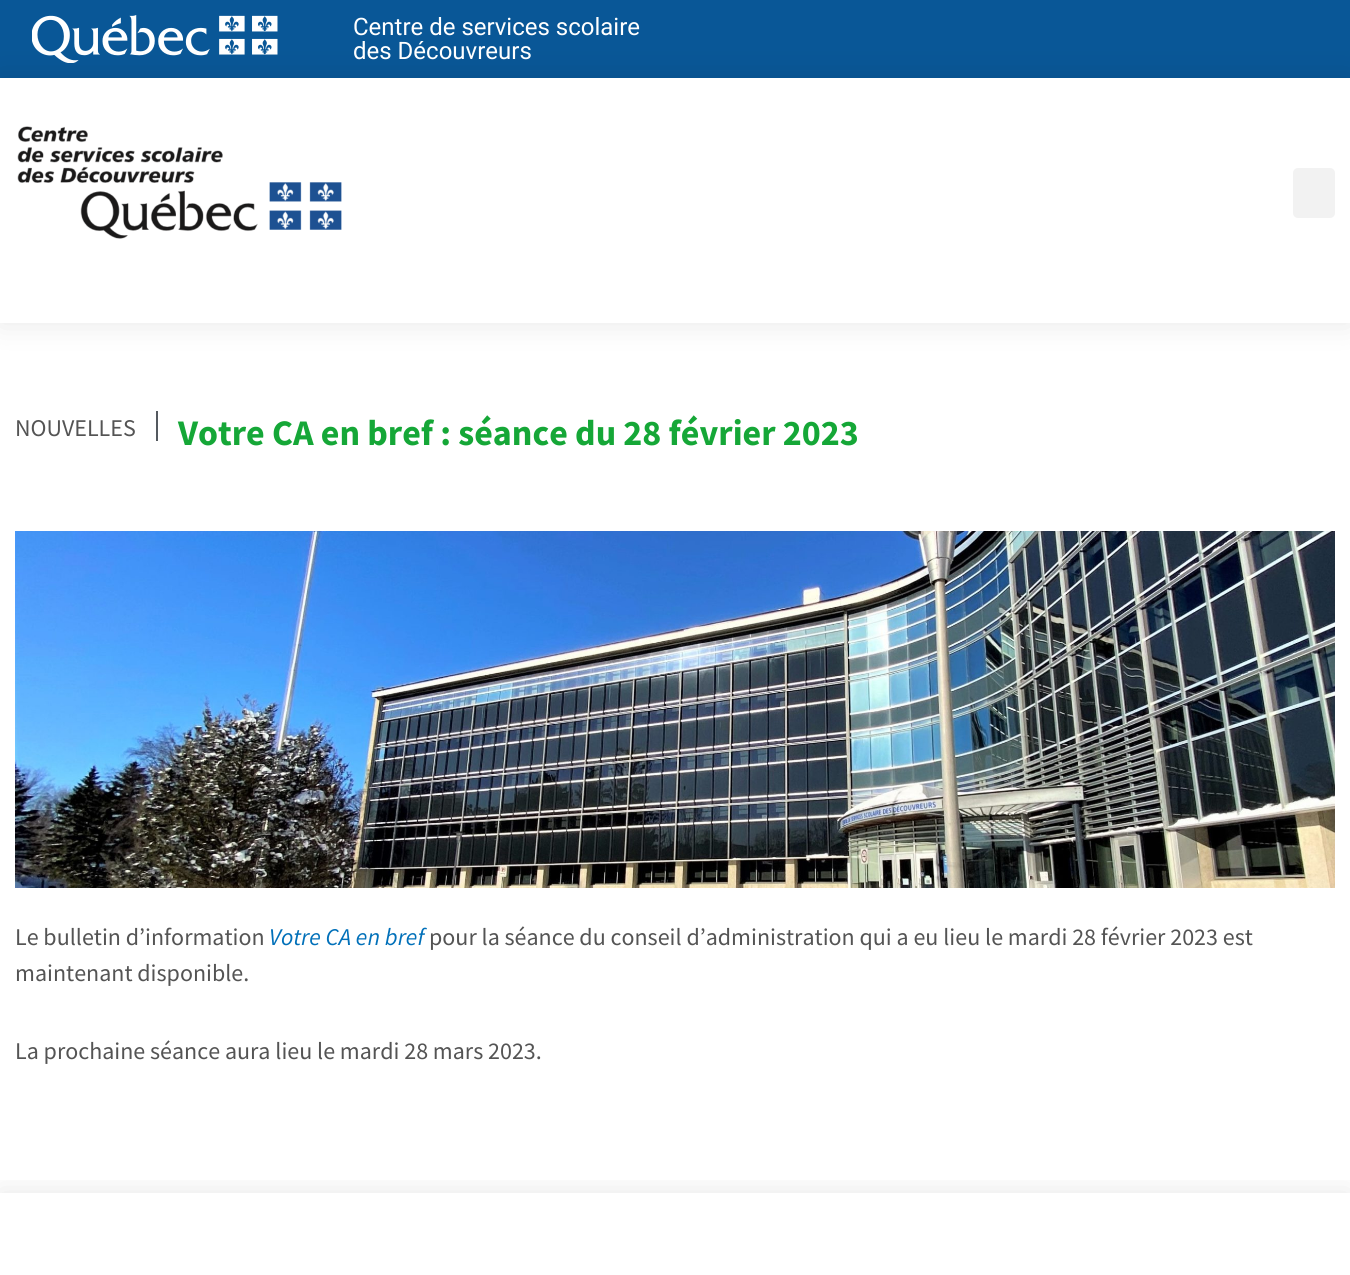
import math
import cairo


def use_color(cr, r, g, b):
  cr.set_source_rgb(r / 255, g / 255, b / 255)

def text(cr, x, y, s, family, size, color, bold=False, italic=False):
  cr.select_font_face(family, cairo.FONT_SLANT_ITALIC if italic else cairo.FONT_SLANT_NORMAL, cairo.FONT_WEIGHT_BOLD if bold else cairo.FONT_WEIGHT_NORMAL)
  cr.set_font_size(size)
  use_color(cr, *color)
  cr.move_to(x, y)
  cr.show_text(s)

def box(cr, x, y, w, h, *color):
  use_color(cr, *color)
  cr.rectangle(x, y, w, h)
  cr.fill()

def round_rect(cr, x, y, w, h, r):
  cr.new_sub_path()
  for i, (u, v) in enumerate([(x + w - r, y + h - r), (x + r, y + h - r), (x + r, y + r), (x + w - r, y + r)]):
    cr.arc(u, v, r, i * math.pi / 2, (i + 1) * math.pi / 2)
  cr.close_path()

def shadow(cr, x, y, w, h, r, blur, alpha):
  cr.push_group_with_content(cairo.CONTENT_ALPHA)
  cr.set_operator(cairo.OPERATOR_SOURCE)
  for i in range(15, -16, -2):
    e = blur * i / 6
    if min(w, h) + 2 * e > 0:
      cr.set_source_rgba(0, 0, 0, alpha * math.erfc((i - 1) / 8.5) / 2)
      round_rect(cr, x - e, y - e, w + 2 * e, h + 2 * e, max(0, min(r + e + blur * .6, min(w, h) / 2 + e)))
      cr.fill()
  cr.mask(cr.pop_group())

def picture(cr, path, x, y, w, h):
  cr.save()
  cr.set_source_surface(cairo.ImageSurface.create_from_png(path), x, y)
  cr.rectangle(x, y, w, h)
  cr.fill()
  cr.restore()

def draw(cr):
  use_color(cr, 255, 255, 255)
  cr.paint()
  box(cr, 0, 0, 1350, 78, 9, 87, 151)
  picture(cr, "img_01.png", 32, 15, 246, 48)
  use_color(cr, 0, 0, 0)
  shadow(cr, 0, 78, 1350, 245, 0, 15, 0.1)
  box(cr, 0, 78, 1350, 245, 255, 255, 255)
  picture(cr, "img_02.png", 17, 126, 325, 113)
  use_color(cr, 242, 242, 242)
  round_rect(cr, 1293, 168, 42, 50, 5)
  cr.fill()
  box(cr, 156, 411, 2, 30, 84, 89, 95)
  picture(cr, "img_03.png", 15, 531, 1320, 357)
  cr.save()
  cr.rectangle(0, 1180, 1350, 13)
  cr.clip()
  use_color(cr, 0, 0, 0)
  shadow(cr, 0, 1193, 1350, 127, 0, 15, 0.1)
  cr.restore()
  text(cr, 353, 35, "Centre de services scolaire", "Roboto", 24, (255, 255, 255))
  text(cr, 353, 59, "des Découvreurs", "Roboto", 24, (255, 255, 255))
  text(cr, 15, 436, "NOUVELLES", "Source Sans Pro", 24, (84, 84, 84))
  text(cr, 178, 445, "Votre CA en bref : séance du 28 février 2023", "Source Sans Pro", 36, (21, 167, 55), bold=True)
  text(cr, 15, 945, "Le bulletin d’information", "Source Sans Pro", 24, (84, 84, 84))
  text(cr, 269, 945, "Votre CA en bref", "Source Sans Pro", 24, (1, 112, 185), italic=True)
  text(cr, 429, 945, "pour la séance du conseil d’administration qui a eu lieu le mardi 28 février 2023 est", "Source Sans Pro", 24, (84, 84, 84))
  text(cr, 15, 981, "maintenant disponible.", "Source Sans Pro", 24, (84, 84, 84))
  text(cr, 15, 1059, "La prochaine séance aura lieu le mardi 28 mars 2023.", "Source Sans Pro", 24, (84, 84, 84))


surface = cairo.ImageSurface(cairo.FORMAT_RGB24, 1350, 1275)
cr = cairo.Context(surface)
options = cairo.FontOptions()
options.set_hint_metrics(cairo.HINT_METRICS_OFF)
options.set_hint_style(cairo.HINT_STYLE_NONE)
cr.set_font_options(options)
cr.set_miter_limit(4)
draw(cr)
surface.write_to_png("out.png")
